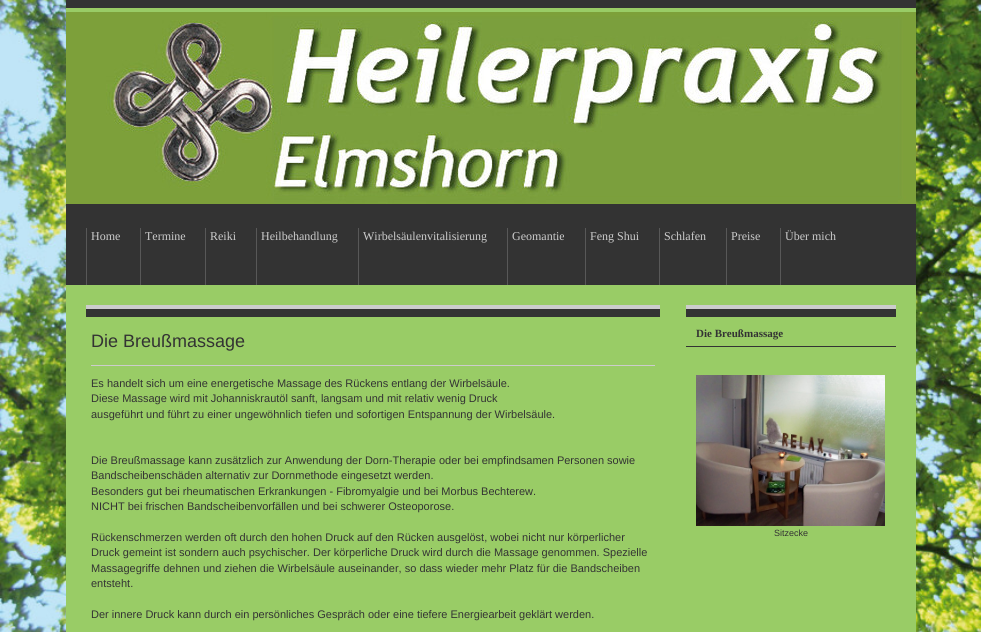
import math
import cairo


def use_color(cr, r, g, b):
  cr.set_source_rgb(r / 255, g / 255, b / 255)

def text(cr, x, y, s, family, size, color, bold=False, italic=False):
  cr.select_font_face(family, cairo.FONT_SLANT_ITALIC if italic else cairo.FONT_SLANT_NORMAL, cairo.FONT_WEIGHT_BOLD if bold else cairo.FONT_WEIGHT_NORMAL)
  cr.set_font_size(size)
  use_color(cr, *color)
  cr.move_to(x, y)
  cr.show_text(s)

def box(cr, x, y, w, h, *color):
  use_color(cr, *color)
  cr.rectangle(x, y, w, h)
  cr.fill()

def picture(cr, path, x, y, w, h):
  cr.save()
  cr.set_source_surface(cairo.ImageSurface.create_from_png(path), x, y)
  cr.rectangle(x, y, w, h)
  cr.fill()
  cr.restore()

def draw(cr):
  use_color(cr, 255, 255, 255)
  cr.paint()
  picture(cr, "img_01.png", 0, 0, 981, 632)
  box(cr, 66, 8, 850, 624, 153, 204, 102)
  box(cr, 66, 0, 850, 8, 51, 51, 51)
  picture(cr, "img_02.png", 66, 12, 850, 192)
  box(cr, 66, 204, 850, 81, 51, 51, 51)
  box(cr, 86, 228, 1, 57, 88, 88, 88)
  box(cr, 140, 228, 1, 57, 88, 88, 88)
  box(cr, 205, 228, 1, 57, 88, 88, 88)
  box(cr, 256, 228, 1, 57, 88, 88, 88)
  box(cr, 358, 228, 1, 57, 88, 88, 88)
  box(cr, 507, 228, 1, 57, 88, 88, 88)
  box(cr, 585, 228, 1, 57, 88, 88, 88)
  box(cr, 659, 228, 1, 57, 88, 88, 88)
  box(cr, 726, 228, 1, 57, 88, 88, 88)
  box(cr, 780, 228, 1, 57, 88, 88, 88)
  box(cr, 86, 309, 574, 8, 51, 51, 51)
  box(cr, 86, 305, 574, 4, 204, 204, 204)
  box(cr, 91, 365, 564, 1, 204, 204, 204)
  box(cr, 686, 309, 210, 8, 51, 51, 51)
  box(cr, 686, 305, 210, 4, 204, 204, 204)
  box(cr, 686, 346, 210, 1, 51, 51, 51)
  picture(cr, "img_03.png", 696, 375, 189, 151)
  text(cr, 91, 240, "Home", "Liberation Serif", 12, (204, 204, 204))
  text(cr, 145, 240, "Termine", "Liberation Serif", 12, (204, 204, 204))
  text(cr, 210, 240, "Reiki", "Liberation Serif", 12, (204, 204, 204))
  text(cr, 261, 240, "Heilbehandlung", "Liberation Serif", 12, (204, 204, 204))
  text(cr, 363, 240, "Wirbelsäulenvitalisierung", "Liberation Serif", 12, (204, 204, 204))
  text(cr, 512, 240, "Geomantie", "Liberation Serif", 12, (204, 204, 204))
  text(cr, 590, 240, "Feng Shui", "Liberation Serif", 12, (204, 204, 204))
  text(cr, 664, 240, "Schlafen", "Liberation Serif", 12, (204, 204, 204))
  text(cr, 731, 240, "Preise", "Liberation Serif", 12, (204, 204, 204))
  text(cr, 785, 240, "Über mich", "Liberation Serif", 12, (204, 204, 204))
  text(cr, 91, 347, "Die Breußmassage", "Liberation Sans", 18, (51, 51, 51))
  text(cr, 91, 387, "Es handelt sich um eine energetische Massage des Rückens entlang der Wirbelsäule.", "Liberation Sans", 11, (51, 51, 51))
  text(cr, 91, 402, "Diese Massage wird mit Johanniskrautöl sanft, langsam und mit relativ wenig Druck", "Liberation Sans", 11, (51, 51, 51))
  text(cr, 91, 418, "ausgeführt und führt zu einer ungewöhnlich tiefen und sofortigen Entspannung der Wirbelsäule.", "Liberation Sans", 11, (51, 51, 51))
  text(cr, 91, 464, "Die Breußmassage kann zusätzlich zur Anwendung der Dorn-Therapie oder bei empfindsamen Personen sowie", "Liberation Sans", 11, (51, 51, 51))
  text(cr, 91, 479, "Bandscheibenschäden alternativ zur Dornmethode eingesetzt werden.", "Liberation Sans", 11, (51, 51, 51))
  text(cr, 91, 495, "Besonders gut bei rheumatischen Erkrankungen - Fibromyalgie und bei Morbus Bechterew.", "Liberation Sans", 11, (51, 51, 51))
  text(cr, 91, 510, "NICHT bei frischen Bandscheibenvorfällen und bei schwerer Osteoporose.", "Liberation Sans", 11, (51, 51, 51))
  text(cr, 91, 541, "Rückenschmerzen werden oft durch den hohen Druck auf den Rücken ausgelöst, wobei nicht nur körperlicher", "Liberation Sans", 11, (51, 51, 51))
  text(cr, 91, 556, "Druck gemeint ist sondern auch psychischer. Der körperliche Druck wird durch die Massage genommen. Spezielle", "Liberation Sans", 11, (51, 51, 51))
  text(cr, 91, 572, "Massagegriffe dehnen und ziehen die Wirbelsäule auseinander, so dass wieder mehr Platz für die Bandscheiben", "Liberation Sans", 11, (51, 51, 51))
  text(cr, 91, 587, "entsteht.", "Liberation Sans", 11, (51, 51, 51))
  text(cr, 91, 618, "Der innere Druck kann durch ein persönliches Gespräch oder eine tiefere Energiearbeit geklärt werden.", "Liberation Sans", 11, (51, 51, 51))
  text(cr, 696, 337, "Die Breußmassage", "Liberation Serif", 11, (51, 51, 51), bold=True)
  text(cr, 774, 536, "Sitzecke", "Liberation Sans", 9, (51, 51, 51))


surface = cairo.ImageSurface(cairo.FORMAT_RGB24, 981, 632)
cr = cairo.Context(surface)
options = cairo.FontOptions()
options.set_hint_metrics(cairo.HINT_METRICS_OFF)
options.set_hint_style(cairo.HINT_STYLE_NONE)
cr.set_font_options(options)
cr.set_miter_limit(4)
draw(cr)
surface.write_to_png("out.png")
